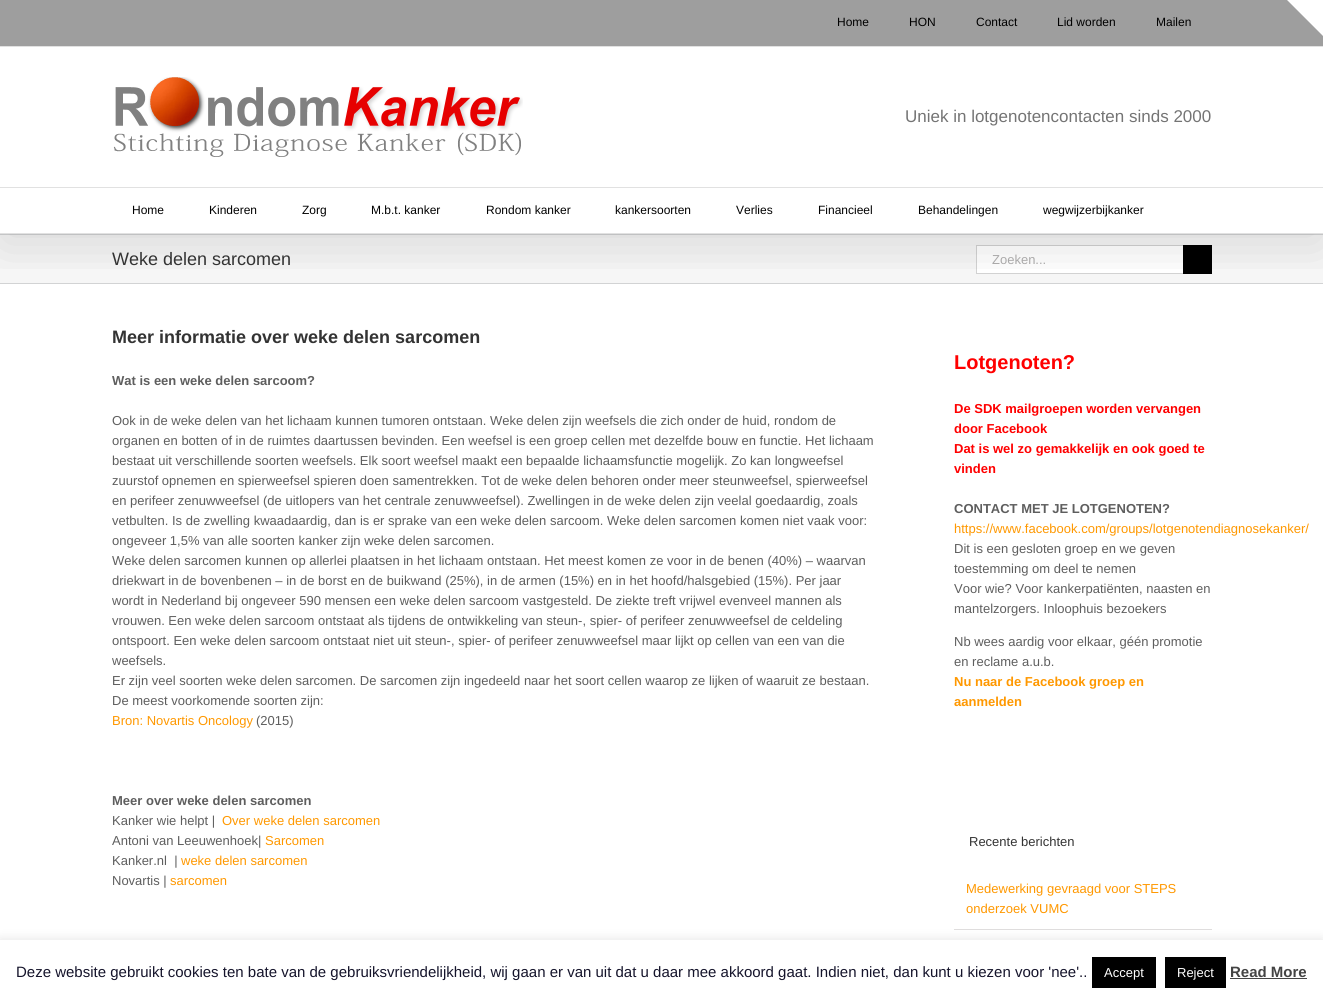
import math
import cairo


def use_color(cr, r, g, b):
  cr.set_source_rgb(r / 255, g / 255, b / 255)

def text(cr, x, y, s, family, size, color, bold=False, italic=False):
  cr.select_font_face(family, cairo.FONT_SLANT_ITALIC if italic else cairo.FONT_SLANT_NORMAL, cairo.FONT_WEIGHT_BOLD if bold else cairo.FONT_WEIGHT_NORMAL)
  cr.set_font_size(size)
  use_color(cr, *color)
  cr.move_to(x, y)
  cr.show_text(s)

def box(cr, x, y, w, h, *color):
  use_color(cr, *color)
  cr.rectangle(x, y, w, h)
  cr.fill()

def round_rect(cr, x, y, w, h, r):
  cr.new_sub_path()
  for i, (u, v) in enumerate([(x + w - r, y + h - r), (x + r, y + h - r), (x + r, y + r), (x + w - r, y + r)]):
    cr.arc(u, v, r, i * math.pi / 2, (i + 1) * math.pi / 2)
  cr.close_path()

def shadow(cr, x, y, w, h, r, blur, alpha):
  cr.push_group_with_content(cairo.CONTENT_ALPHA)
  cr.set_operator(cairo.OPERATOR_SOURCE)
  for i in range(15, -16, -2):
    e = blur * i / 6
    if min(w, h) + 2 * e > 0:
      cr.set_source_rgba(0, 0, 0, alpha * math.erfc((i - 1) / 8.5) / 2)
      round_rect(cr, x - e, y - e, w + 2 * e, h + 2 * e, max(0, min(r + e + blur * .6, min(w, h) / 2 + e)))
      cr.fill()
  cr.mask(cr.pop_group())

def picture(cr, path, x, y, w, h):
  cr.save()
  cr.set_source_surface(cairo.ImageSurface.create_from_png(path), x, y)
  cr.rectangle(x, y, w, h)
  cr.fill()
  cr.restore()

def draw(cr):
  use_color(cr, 255, 255, 255)
  cr.paint()
  box(cr, 0, 235, 1323, 48, 246, 246, 246)
  box(cr, 0, 234, 1323, 1, 210, 211, 212)
  box(cr, 0, 283, 1323, 1, 210, 211, 212)
  box(cr, 977, 246, 206, 27, 255, 255, 255)
  box(cr, 976, 245, 207, 1, 210, 210, 210)
  box(cr, 976, 273, 207, 1, 210, 210, 210)
  box(cr, 976, 245, 1, 29, 210, 210, 210)
  box(cr, 1183, 245, 29, 29, 0, 0, 0)
  cr.save()
  cr.rectangle(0, 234, 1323, 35)
  cr.clip()
  use_color(cr, 0, 0, 0)
  shadow(cr, 2, 12, 1319, 230, 0, 25, 0.14)
  cr.restore()
  box(cr, 0, 0, 1323, 46, 158, 158, 158)
  box(cr, 0, 46, 1323, 1, 225, 225, 225)
  box(cr, 0, 187, 1323, 1, 225, 225, 225)
  picture(cr, "img_01.png", 113, 77, 410, 80)
  box(cr, 0, 233, 1323, 1, 225, 225, 225)
  use_color(cr, 255, 255, 255)
  cr.new_path()
  cr.move_to(1287, 0)
  cr.line_to(1323, 0)
  cr.line_to(1323, 36)
  cr.close_path()
  cr.fill()
  box(cr, 954, 929, 258, 1, 224, 222, 222)
  use_color(cr, 172, 171, 171)
  shadow(cr, 0, 939, 1323, 60, 0, 5, 0.3)
  box(cr, 0, 940, 1323, 60, 255, 255, 255)
  box(cr, 1092, 957, 64, 31, 0, 0, 0)
  box(cr, 1165, 957, 61, 31, 0, 0, 0)
  box(cr, 1230, 978, 77, 1, 68, 68, 68)
  text(cr, 837, 26, "Home", "Liberation Sans", 12, (0, 0, 0))
  text(cr, 909, 26, "HON", "Liberation Sans", 12, (0, 0, 0))
  text(cr, 976, 26, "Contact", "Liberation Sans", 12, (0, 0, 0))
  text(cr, 1057, 26, "Lid worden", "Liberation Sans", 12, (0, 0, 0))
  text(cr, 1156, 26, "Mailen", "Liberation Sans", 12, (0, 0, 0))
  text(cr, 905, 122, "Uniek in lotgenotencontacten sinds 2000", "Liberation Sans", 17, (116, 116, 116))
  text(cr, 132, 214, "Home", "Liberation Sans", 12, (0, 0, 0))
  text(cr, 209, 214, "Kinderen", "Liberation Sans", 12, (0, 0, 0))
  text(cr, 302, 214, "Zorg", "Liberation Sans", 12, (0, 0, 0))
  text(cr, 371, 214, "M.b.t. kanker", "Liberation Sans", 12, (0, 0, 0))
  text(cr, 486, 214, "Rondom kanker", "Liberation Sans", 12, (0, 0, 0))
  text(cr, 615, 214, "kankersoorten", "Liberation Sans", 12, (0, 0, 0))
  text(cr, 736, 214, "Verlies", "Liberation Sans", 12, (0, 0, 0))
  text(cr, 818, 214, "Financieel", "Liberation Sans", 12, (0, 0, 0))
  text(cr, 918, 214, "Behandelingen", "Liberation Sans", 12, (0, 0, 0))
  text(cr, 1043, 214, "wegwijzerbijkanker", "Liberation Sans", 12, (0, 0, 0))
  text(cr, 112, 265, "Weke delen sarcomen", "Liberation Sans", 18, (51, 51, 51))
  text(cr, 992, 264, "Zoeken...", "Liberation Sans", 13, (170, 169, 169))
  text(cr, 112, 343, "Meer informatie over weke delen sarcomen", "Liberation Sans", 18, (51, 51, 51), bold=True)
  text(cr, 112, 385, "Wat is een weke delen sarcoom?", "Liberation Sans", 13, (94, 94, 94), bold=True)
  text(cr, 112, 425, "Ook in de weke delen van het lichaam kunnen tumoren ontstaan. Weke delen zijn weefsels die zich onder de huid, rondom de", "Liberation Sans", 13, (94, 94, 94))
  text(cr, 112, 445, "organen en botten of in de ruimtes daartussen bevinden. Een weefsel is een groep cellen met dezelfde bouw en functie. Het lichaam", "Liberation Sans", 13, (94, 94, 94))
  text(cr, 112, 465, "bestaat uit verschillende soorten weefsels. Elk soort weefsel maakt een bepaalde lichaamsfunctie mogelijk. Zo kan longweefsel", "Liberation Sans", 13, (94, 94, 94))
  text(cr, 112, 485, "zuurstof opnemen en spierweefsel spieren doen samentrekken. Tot de weke delen behoren onder meer steunweefsel, spierweefsel", "Liberation Sans", 13, (94, 94, 94))
  text(cr, 112, 505, "en perifeer zenuwweefsel (de uitlopers van het centrale zenuwweefsel). Zwellingen in de weke delen zijn veelal goedaardig, zoals", "Liberation Sans", 13, (94, 94, 94))
  text(cr, 112, 525, "vetbulten. Is de zwelling kwaadaardig, dan is er sprake van een weke delen sarcoom. Weke delen sarcomen komen niet vaak voor:", "Liberation Sans", 13, (94, 94, 94))
  text(cr, 112, 545, "ongeveer 1,5% van alle soorten kanker zijn weke delen sarcomen.", "Liberation Sans", 13, (94, 94, 94))
  text(cr, 112, 565, "Weke delen sarcomen kunnen op allerlei plaatsen in het lichaam ontstaan. Het meest komen ze voor in de benen (40%) – waarvan", "Liberation Sans", 13, (94, 94, 94))
  text(cr, 112, 585, "driekwart in de bovenbenen – in de borst en de buikwand (25%), in de armen (15%) en in het hoofd/halsgebied (15%). Per jaar", "Liberation Sans", 13, (94, 94, 94))
  text(cr, 112, 605, "wordt in Nederland bij ongeveer 590 mensen een weke delen sarcoom vastgesteld. De ziekte treft vrijwel evenveel mannen als", "Liberation Sans", 13, (94, 94, 94))
  text(cr, 112, 625, "vrouwen. Een weke delen sarcoom ontstaat als tijdens de ontwikkeling van steun-, spier- of perifeer zenuwweefsel de celdeling", "Liberation Sans", 13, (94, 94, 94))
  text(cr, 112, 645, "ontspoort. Een weke delen sarcoom ontstaat niet uit steun-, spier- of perifeer zenuwweefsel maar lijkt op cellen van een van die", "Liberation Sans", 13, (94, 94, 94))
  text(cr, 112, 665, "weefsels.", "Liberation Sans", 13, (94, 94, 94))
  text(cr, 112, 685, "Er zijn veel soorten weke delen sarcomen. De sarcomen zijn ingedeeld naar het soort cellen waarop ze lijken of waaruit ze bestaan.", "Liberation Sans", 13, (94, 94, 94))
  text(cr, 112, 705, "De meest voorkomende soorten zijn:", "Liberation Sans", 13, (94, 94, 94))
  text(cr, 112, 725, "Bron: Novartis Oncology", "Liberation Sans", 13, (255, 152, 0))
  text(cr, 256, 725, "(2015)", "Liberation Sans", 13, (94, 94, 94))
  text(cr, 112, 805, "Meer over weke delen sarcomen", "Liberation Sans", 13, (94, 94, 94), bold=True)
  text(cr, 112, 825, "Kanker wie helpt |", "Liberation Sans", 13, (94, 94, 94))
  text(cr, 222, 825, "Over weke delen sarcomen", "Liberation Sans", 13, (255, 152, 0))
  text(cr, 112, 845, "Antoni van Leeuwenhoek|", "Liberation Sans", 13, (94, 94, 94))
  text(cr, 265, 845, "Sarcomen", "Liberation Sans", 13, (255, 152, 0))
  text(cr, 112, 865, "Kanker.nl  |", "Liberation Sans", 13, (94, 94, 94))
  text(cr, 181, 865, "weke delen sarcomen", "Liberation Sans", 13, (255, 152, 0))
  text(cr, 112, 885, "Novartis |", "Liberation Sans", 13, (94, 94, 94))
  text(cr, 170, 885, "sarcomen", "Liberation Sans", 13, (255, 152, 0))
  text(cr, 954, 369, "Lotgenoten?", "Liberation Sans", 20, (255, 0, 0), bold=True)
  text(cr, 954, 413, "De SDK mailgroepen worden vervangen", "Liberation Sans", 13, (255, 0, 0), bold=True)
  text(cr, 954, 433, "door Facebook", "Liberation Sans", 13, (255, 0, 0), bold=True)
  text(cr, 954, 453, "Dat is wel zo gemakkelijk en ook goed te", "Liberation Sans", 13, (255, 0, 0), bold=True)
  text(cr, 954, 473, "vinden", "Liberation Sans", 13, (255, 0, 0), bold=True)
  text(cr, 954, 513, "CONTACT MET JE LOTGENOTEN?", "Liberation Sans", 13, (94, 94, 94), bold=True)
  text(cr, 954, 533, "https://www.facebook.com/groups/lotgenotendiagnosekanker/", "Liberation Sans", 13, (255, 152, 0))
  text(cr, 954, 553, "Dit is een gesloten groep en we geven", "Liberation Sans", 13, (94, 94, 94))
  text(cr, 954, 573, "toestemming om deel te nemen", "Liberation Sans", 13, (94, 94, 94))
  text(cr, 954, 593, "Voor wie? Voor kankerpatiënten, naasten en", "Liberation Sans", 13, (94, 94, 94))
  text(cr, 954, 613, "mantelzorgers. Inloophuis bezoekers", "Liberation Sans", 13, (94, 94, 94))
  text(cr, 954, 646, "Nb wees aardig voor elkaar, géén promotie", "Liberation Sans", 13, (94, 94, 94))
  text(cr, 954, 666, "en reclame a.u.b.", "Liberation Sans", 13, (94, 94, 94))
  text(cr, 954, 686, "Nu naar de Facebook groep en", "Liberation Sans", 13, (255, 152, 0), bold=True)
  text(cr, 954, 706, "aanmelden", "Liberation Sans", 13, (255, 152, 0), bold=True)
  text(cr, 969, 846, "Recente berichten", "Liberation Sans", 13, (51, 51, 51))
  text(cr, 966, 893, "Medewerking gevraagd voor STEPS", "Liberation Sans", 13, (255, 152, 0))
  text(cr, 966, 913, "onderzoek VUMC", "Liberation Sans", 13, (255, 152, 0))
  text(cr, 16, 977, "Deze website gebruikt cookies ten bate van de gebruiksvriendelijkheid, wij gaan er van uit dat u daar mee akkoord gaat. Indien niet, dan kunt u kiezen voor 'nee'..", "Liberation Sans", 15, (21, 20, 43))
  text(cr, 1104, 977, "Accept", "Liberation Sans", 13, (255, 255, 255))
  text(cr, 1177, 977, "Reject", "Liberation Sans", 13, (255, 255, 255))
  text(cr, 1230, 977, "Read More", "Liberation Sans", 15, (68, 68, 68), bold=True)


surface = cairo.ImageSurface(cairo.FORMAT_RGB24, 1323, 1000)
cr = cairo.Context(surface)
options = cairo.FontOptions()
options.set_hint_metrics(cairo.HINT_METRICS_OFF)
options.set_hint_style(cairo.HINT_STYLE_NONE)
cr.set_font_options(options)
cr.set_miter_limit(4)
draw(cr)
surface.write_to_png("out.png")
